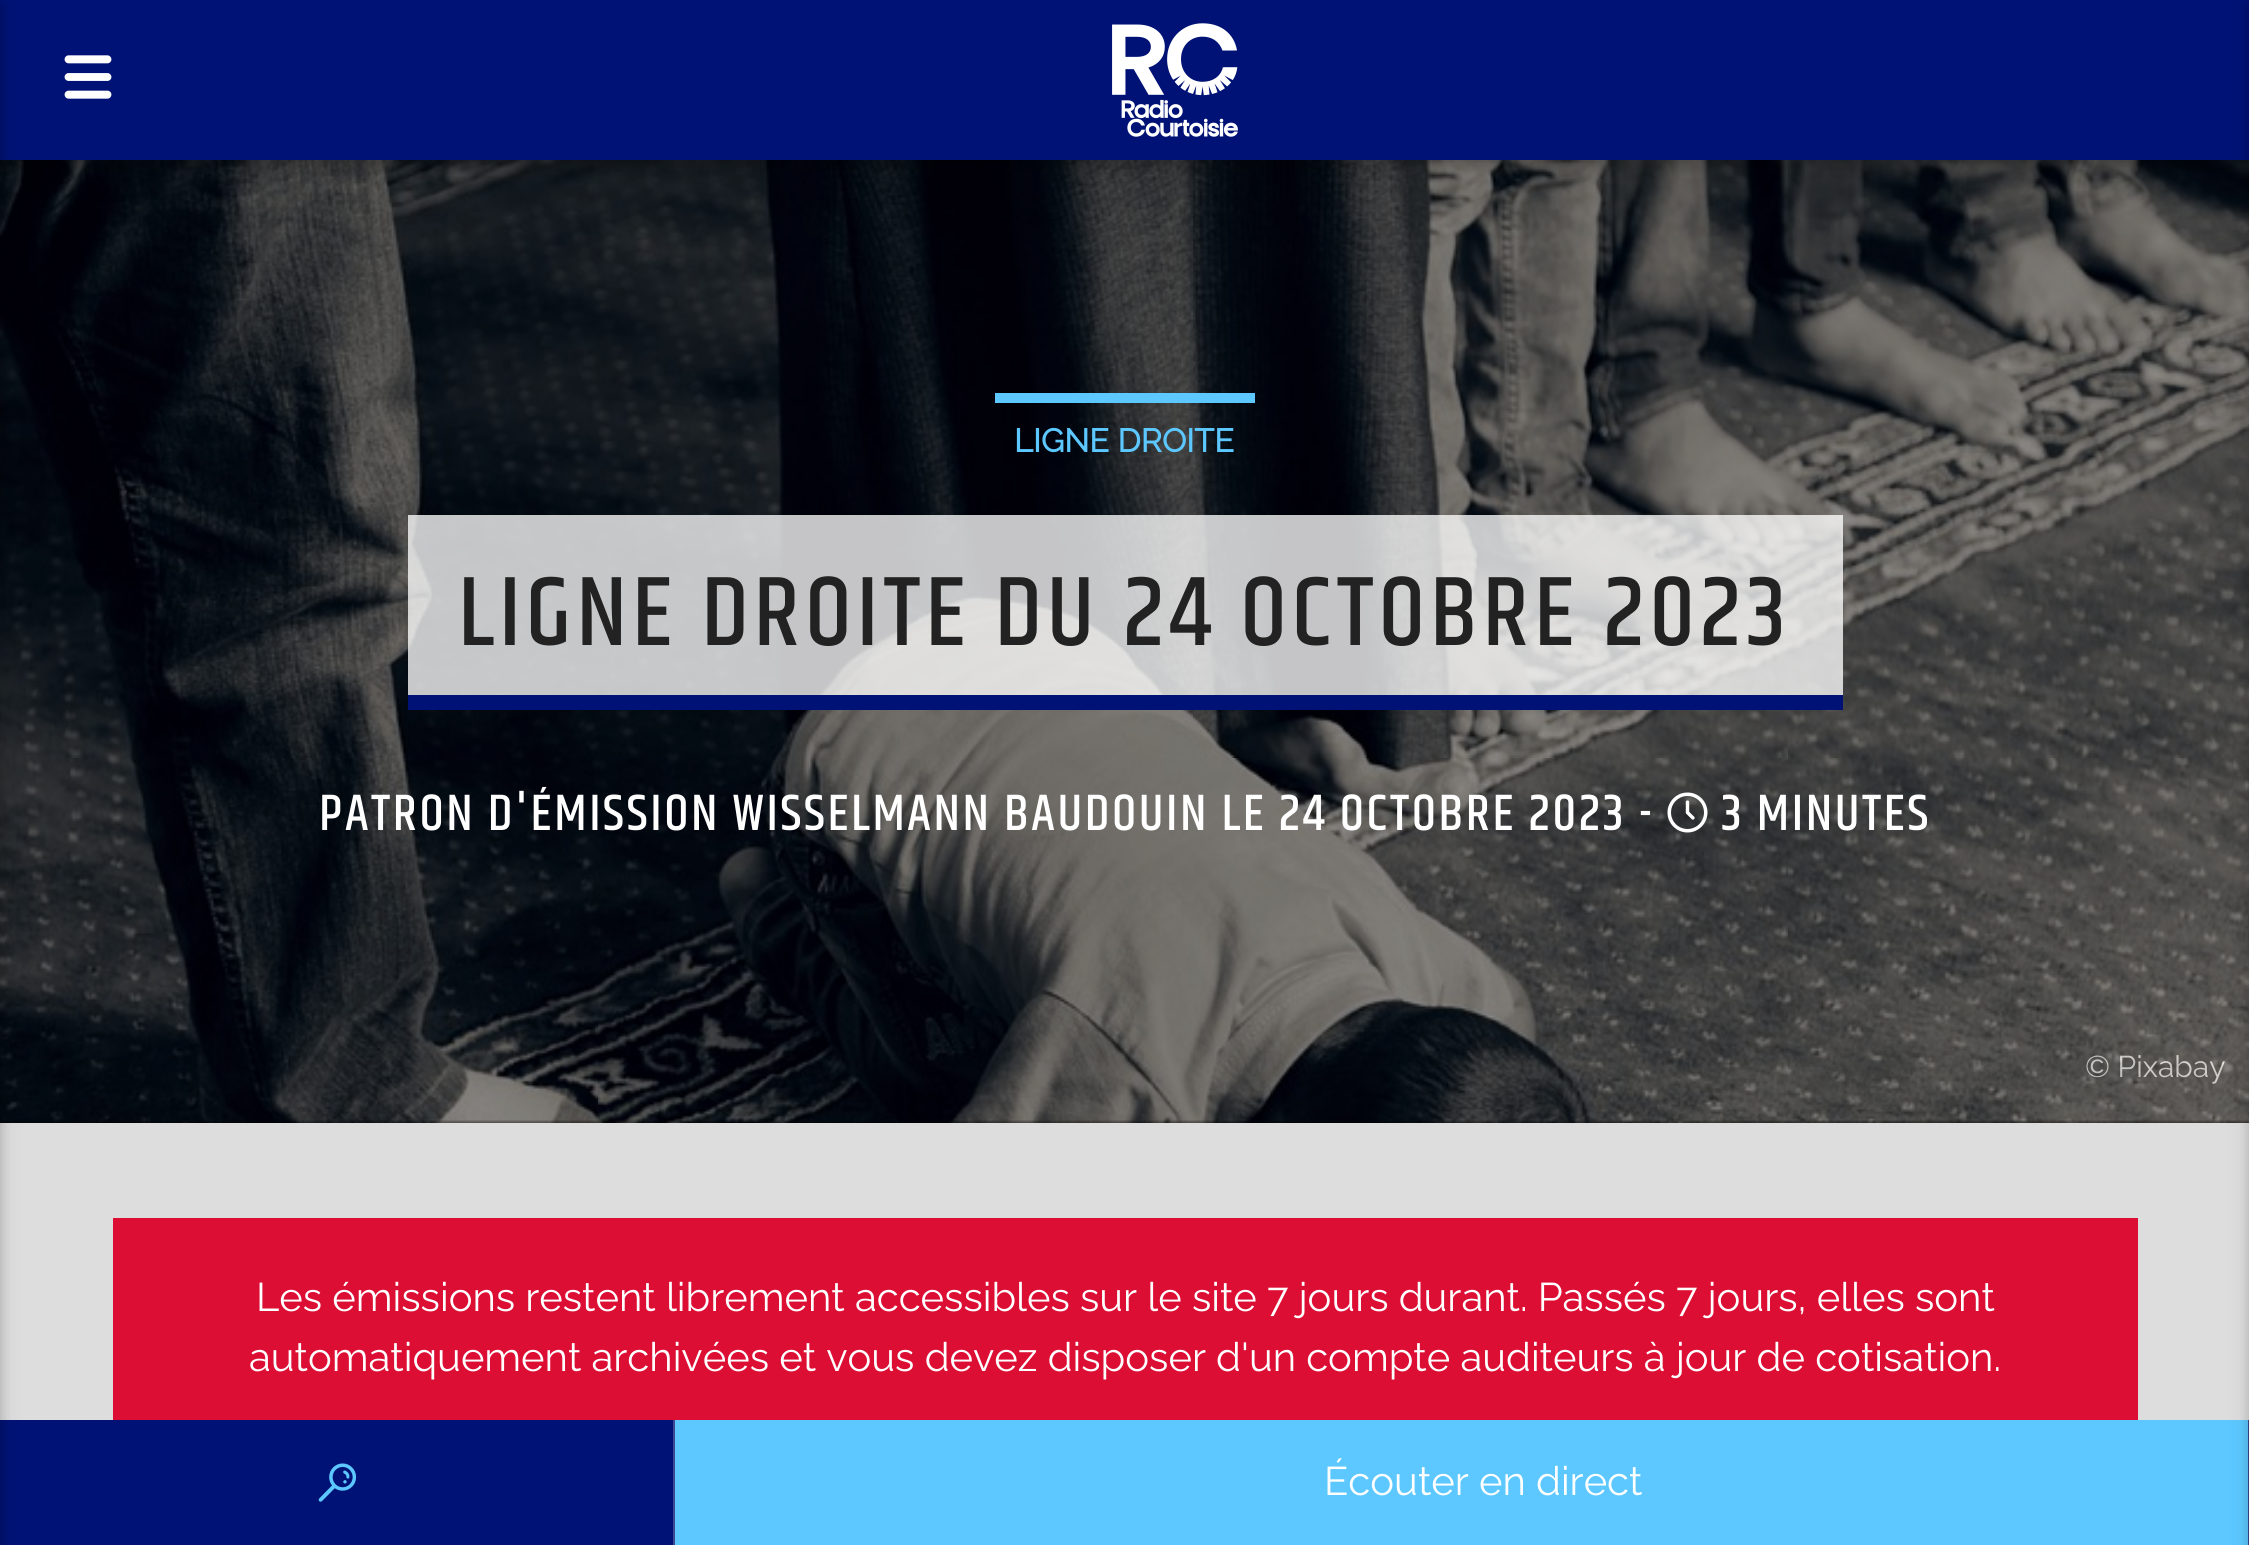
import math
import cairo


def use_color(cr, r, g, b):
  cr.set_source_rgb(r / 255, g / 255, b / 255)

def text(cr, x, y, s, family, size, color, bold=False, italic=False):
  cr.select_font_face(family, cairo.FONT_SLANT_ITALIC if italic else cairo.FONT_SLANT_NORMAL, cairo.FONT_WEIGHT_BOLD if bold else cairo.FONT_WEIGHT_NORMAL)
  cr.set_font_size(size)
  use_color(cr, *color)
  cr.move_to(x, y)
  cr.show_text(s)

def spaced_text(cr, x, y, s, letter, word):
  cr.move_to(x, y)
  for ch in s:
    cr.show_text(ch)
    cr.rel_move_to(letter + word * (ch == ' '), 0)

def box(cr, x, y, w, h, *color):
  use_color(cr, *color)
  cr.rectangle(x, y, w, h)
  cr.fill()

def round_rect(cr, x, y, w, h, r):
  cr.new_sub_path()
  for i, (u, v) in enumerate([(x + w - r, y + h - r), (x + r, y + h - r), (x + r, y + r), (x + w - r, y + r)]):
    cr.arc(u, v, r, i * math.pi / 2, (i + 1) * math.pi / 2)
  cr.close_path()

def shadow(cr, x, y, w, h, r, blur, alpha):
  cr.push_group_with_content(cairo.CONTENT_ALPHA)
  cr.set_operator(cairo.OPERATOR_SOURCE)
  for i in range(15, -16, -2):
    e = blur * i / 6
    if min(w, h) + 2 * e > 0:
      cr.set_source_rgba(0, 0, 0, alpha * math.erfc((i - 1) / 8.5) / 2)
      round_rect(cr, x - e, y - e, w + 2 * e, h + 2 * e, max(0, min(r + e + blur * .6, min(w, h) / 2 + e)))
      cr.fill()
  cr.mask(cr.pop_group())

def picture(cr, path, x, y, w, h):
  cr.save()
  cr.set_source_surface(cairo.ImageSurface.create_from_png(path), x, y)
  cr.rectangle(x, y, w, h)
  cr.fill()
  cr.restore()

def draw(cr):
  use_color(cr, 221, 221, 221)
  cr.paint()
  box(cr, 0, 160, 2249, 963, 0, 0, 0)
  box(cr, 113, 1218, 2025, 202, 221, 14, 52)
  box(cr, 0, 1420, 673, 125, 0, 18, 117)
  box(cr, 673, 1420, 2, 125, 60, 73, 142)
  picture(cr, "img_05.png", 318, 1463, 39, 39)
  box(cr, 2248, 1420, 1, 125, 60, 73, 142)
  box(cr, 675, 1420, 1573, 125, 92, 200, 255)
  text(cr, 2085, 1077, "© Pixabay", "Raleway Thin", 30, (255, 255, 255))
  picture(cr, "img_03.png", 0, 160, 2249, 963)
  use_color(cr, 0, 0, 0)
  shadow(cr, 0, 5, 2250, 160, 0, 6, 0.16)
  shadow(cr, 0, 5, 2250, 160, 0, 12.5, 0.12)
  box(cr, 0, 0, 2249, 160, 0, 18, 117)
  use_color(cr, 0, 0, 0)
  shadow(cr, -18, 5, 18, 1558, 0, 6, 0.16)
  shadow(cr, -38, 5, 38, 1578, 0, 12.5, 0.12)
  picture(cr, "img_01.png", 64, 55, 48, 44)
  picture(cr, "img_02.png", 1112, 23, 126, 114)
  cr.select_font_face("Khand Medium")
  cr.set_font_size(52)
  use_color(cr, 255, 255, 255)
  spaced_text(cr, 1721, 830, "3 MINUTES", 2.6, 0)
  picture(cr, "img_04.png", 1667, 792, 41, 41)
  spaced_text(cr, 319, 830, "PATRON D'ÉMISSION WISSELMANN BAUDOUIN LE 24 OCTOBRE 2023 -", 2.6, 0)
  cr.set_source_rgba(1, 1, 1, 0.77)
  cr.rectangle(408, 515, 1435, 180)
  cr.fill()
  cr.set_font_size(100)
  use_color(cr, 34, 34, 34)
  spaced_text(cr, 458, 645, "LIGNE DROITE DU 24 OCTOBRE 2023", 5, 0)
  box(cr, 408, 695, 1435, 15, 0, 18, 117)
  text(cr, 1014, 452, "LIGNE DROITE", "Raleway", 32.5, (92, 200, 255), bold=True)
  box(cr, 995, 393, 260, 10, 92, 200, 255)
  text(cr, 256, 1311, "Les émissions restent librement accessibles sur le site 7 jours durant. Passés 7 jours, elles sont", "Raleway Thin", 40, (255, 255, 255))
  text(cr, 249, 1371, "automatiquement archivées et vous devez disposer d'un compte auditeurs à jour de cotisation.", "Raleway Thin", 40, (255, 255, 255))
  use_color(cr, 0, 0, 0)
  shadow(cr, 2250, 5, 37, 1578, 0, 12.5, 0.12)
  shadow(cr, 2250, 5, 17, 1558, 0, 6, 0.16)
  text(cr, 1324, 1495, "Écouter en direct", "Raleway Thin", 40, (255, 255, 255))


surface = cairo.ImageSurface(cairo.FORMAT_RGB24, 2249, 1545)
cr = cairo.Context(surface)
options = cairo.FontOptions()
options.set_hint_metrics(cairo.HINT_METRICS_OFF)
options.set_hint_style(cairo.HINT_STYLE_NONE)
cr.set_font_options(options)
cr.set_miter_limit(4)
draw(cr)
surface.write_to_png("out.png")
